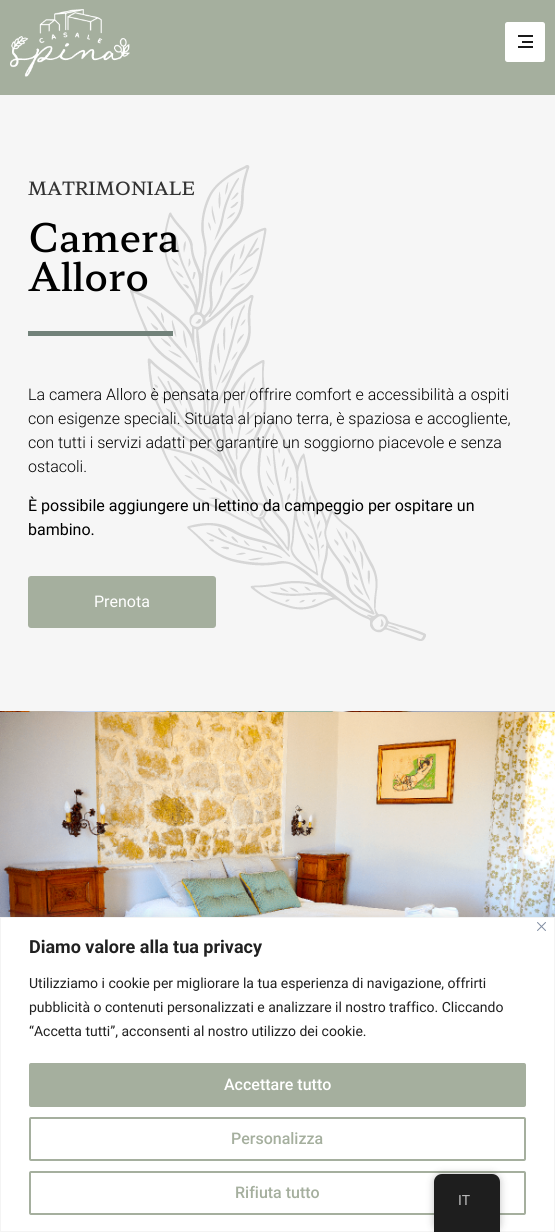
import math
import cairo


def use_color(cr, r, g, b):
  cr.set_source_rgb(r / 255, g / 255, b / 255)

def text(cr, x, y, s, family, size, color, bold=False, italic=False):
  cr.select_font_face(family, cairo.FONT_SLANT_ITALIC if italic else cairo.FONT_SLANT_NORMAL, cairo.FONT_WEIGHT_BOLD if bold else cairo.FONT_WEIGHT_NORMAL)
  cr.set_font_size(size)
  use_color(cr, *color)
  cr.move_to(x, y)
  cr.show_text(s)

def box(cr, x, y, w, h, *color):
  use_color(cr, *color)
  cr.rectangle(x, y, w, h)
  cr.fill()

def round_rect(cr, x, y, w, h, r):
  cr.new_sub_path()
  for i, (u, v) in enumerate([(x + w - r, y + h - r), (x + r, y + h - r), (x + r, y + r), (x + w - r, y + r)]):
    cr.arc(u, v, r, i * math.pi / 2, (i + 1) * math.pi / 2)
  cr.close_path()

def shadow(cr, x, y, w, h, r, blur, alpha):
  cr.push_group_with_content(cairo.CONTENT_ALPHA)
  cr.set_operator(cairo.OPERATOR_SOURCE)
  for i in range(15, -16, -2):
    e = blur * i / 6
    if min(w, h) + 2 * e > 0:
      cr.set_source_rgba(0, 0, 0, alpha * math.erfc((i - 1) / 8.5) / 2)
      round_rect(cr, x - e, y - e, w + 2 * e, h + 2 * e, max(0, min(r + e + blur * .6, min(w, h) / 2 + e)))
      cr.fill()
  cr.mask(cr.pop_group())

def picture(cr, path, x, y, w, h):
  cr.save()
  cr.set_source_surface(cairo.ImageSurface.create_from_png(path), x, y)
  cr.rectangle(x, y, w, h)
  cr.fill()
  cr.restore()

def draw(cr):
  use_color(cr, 165, 175, 158)
  cr.paint()
  picture(cr, "img_01.png", 10, 9, 120, 68)
  use_color(cr, 255, 255, 255)
  round_rect(cr, 505, 22, 40, 40, 2.5)
  cr.fill()
  box(cr, 518, 35, 15, 2, 26, 26, 26)
  box(cr, 522, 41, 11, 2, 26, 26, 26)
  box(cr, 518, 46, 15, 2, 26, 26, 26)
  box(cr, 0, 95, 555, 616, 246, 246, 246)
  picture(cr, "img_02.png", 130, 165, 296, 476)
  box(cr, 28, 331, 145, 5, 114, 130, 122)
  use_color(cr, 165, 175, 158)
  round_rect(cr, 28, 576, 188, 52, 3)
  cr.fill()
  picture(cr, "img_03.png", 0, 711, 555, 1)
  picture(cr, "img_04.png", 0, 712, 555, 205)
  use_color(cr, 172, 171, 171)
  shadow(cr, 0, 916, 555, 315, 0, 5, 0.3)
  use_color(cr, 255, 255, 255)
  cr.rectangle(0.5, 917.5, 554, 314)
  cr.fill_preserve()
  use_color(cr, 244, 244, 244)
  cr.set_line_width(1)
  cr.stroke()
  picture(cr, "img_05.png", 537, 922, 9, 9)
  use_color(cr, 165, 175, 158)
  round_rect(cr, 30, 1064, 495, 42, 1)
  cr.fill_preserve()
  cr.set_line_width(2)
  cr.stroke()
  round_rect(cr, 30, 1118, 495, 42, 1)
  cr.stroke()
  round_rect(cr, 30, 1172, 495, 42, 1)
  cr.stroke()
  use_color(cr, 0, 0, 0)
  shadow(cr, 434, 1174, 66, 58, 8, 4, 0.25)
  use_color(cr, 30, 30, 30)
  cr.new_path()
  cr.move_to(442, 1174)
  cr.line_to(492, 1174)
  cr.curve_to(496.5, 1174, 500, 1177.5, 500, 1182)
  cr.line_to(500, 1232)
  cr.line_to(434, 1232)
  cr.line_to(434, 1182)
  cr.curve_to(434, 1177.5, 437.5, 1174, 442, 1174)
  cr.close_path()
  cr.fill()
  text(cr, 28, 195, "MATRIMONIALE", "Hahmlet Medium", 18, (51, 51, 51))
  text(cr, 28, 252, "Camera", "Hahmlet Medium", 39, (0, 0, 0))
  text(cr, 28, 291, "Alloro", "Hahmlet Medium", 39, (0, 0, 0))
  text(cr, 28, 400, "La camera Alloro è pensata per offrire comfort e accessibilità a ospiti", "Roboto Light", 16, (0, 0, 0))
  text(cr, 28, 424, "con esigenze speciali. Situata al piano terra, è spaziosa e accogliente,", "Roboto Light", 16, (0, 0, 0))
  text(cr, 28, 448, "con tutti i servizi adatti per garantire un soggiorno piacevole e senza", "Roboto Light", 16, (0, 0, 0))
  text(cr, 28, 472, "ostacoli.", "Roboto Light", 16, (0, 0, 0))
  text(cr, 28, 511, "È possibile aggiungere un lettino da campeggio per ospitare un", "Roboto", 16, (0, 0, 0))
  text(cr, 28, 535, "bambino.", "Roboto", 16, (0, 0, 0))
  text(cr, 94, 607, "Prenota", "Roboto", 16, (255, 255, 255))
  text(cr, 29, 953, "Diamo valore alla tua privacy", "Roboto", 18, (33, 33, 33), bold=True)
  text(cr, 29, 988, "Utilizziamo i cookie per migliorare la tua esperienza di navigazione, offrirti", "Roboto", 14, (33, 33, 33))
  text(cr, 29, 1012, "pubblicità o contenuti personalizzati e analizzare il nostro traffico. Cliccando", "Roboto", 14, (33, 33, 33))
  text(cr, 29, 1036, "“Accetta tutti”, acconsenti al nostro utilizzo dei cookie.", "Roboto", 14, (33, 33, 33))
  text(cr, 224, 1090, "Accettare tutto", "Roboto Medium", 16, (255, 255, 255))
  text(cr, 231, 1144, "Personalizza", "Roboto Medium", 16, (165, 175, 158))
  text(cr, 235, 1198, "Rifiuta tutto", "Roboto Medium", 16, (165, 175, 158))
  text(cr, 458, 1205, "IT", "Roboto", 14, (189, 189, 189))


surface = cairo.ImageSurface(cairo.FORMAT_RGB24, 555, 1232)
cr = cairo.Context(surface)
options = cairo.FontOptions()
options.set_hint_metrics(cairo.HINT_METRICS_OFF)
options.set_hint_style(cairo.HINT_STYLE_NONE)
cr.set_font_options(options)
cr.set_miter_limit(4)
draw(cr)
surface.write_to_png("out.png")
